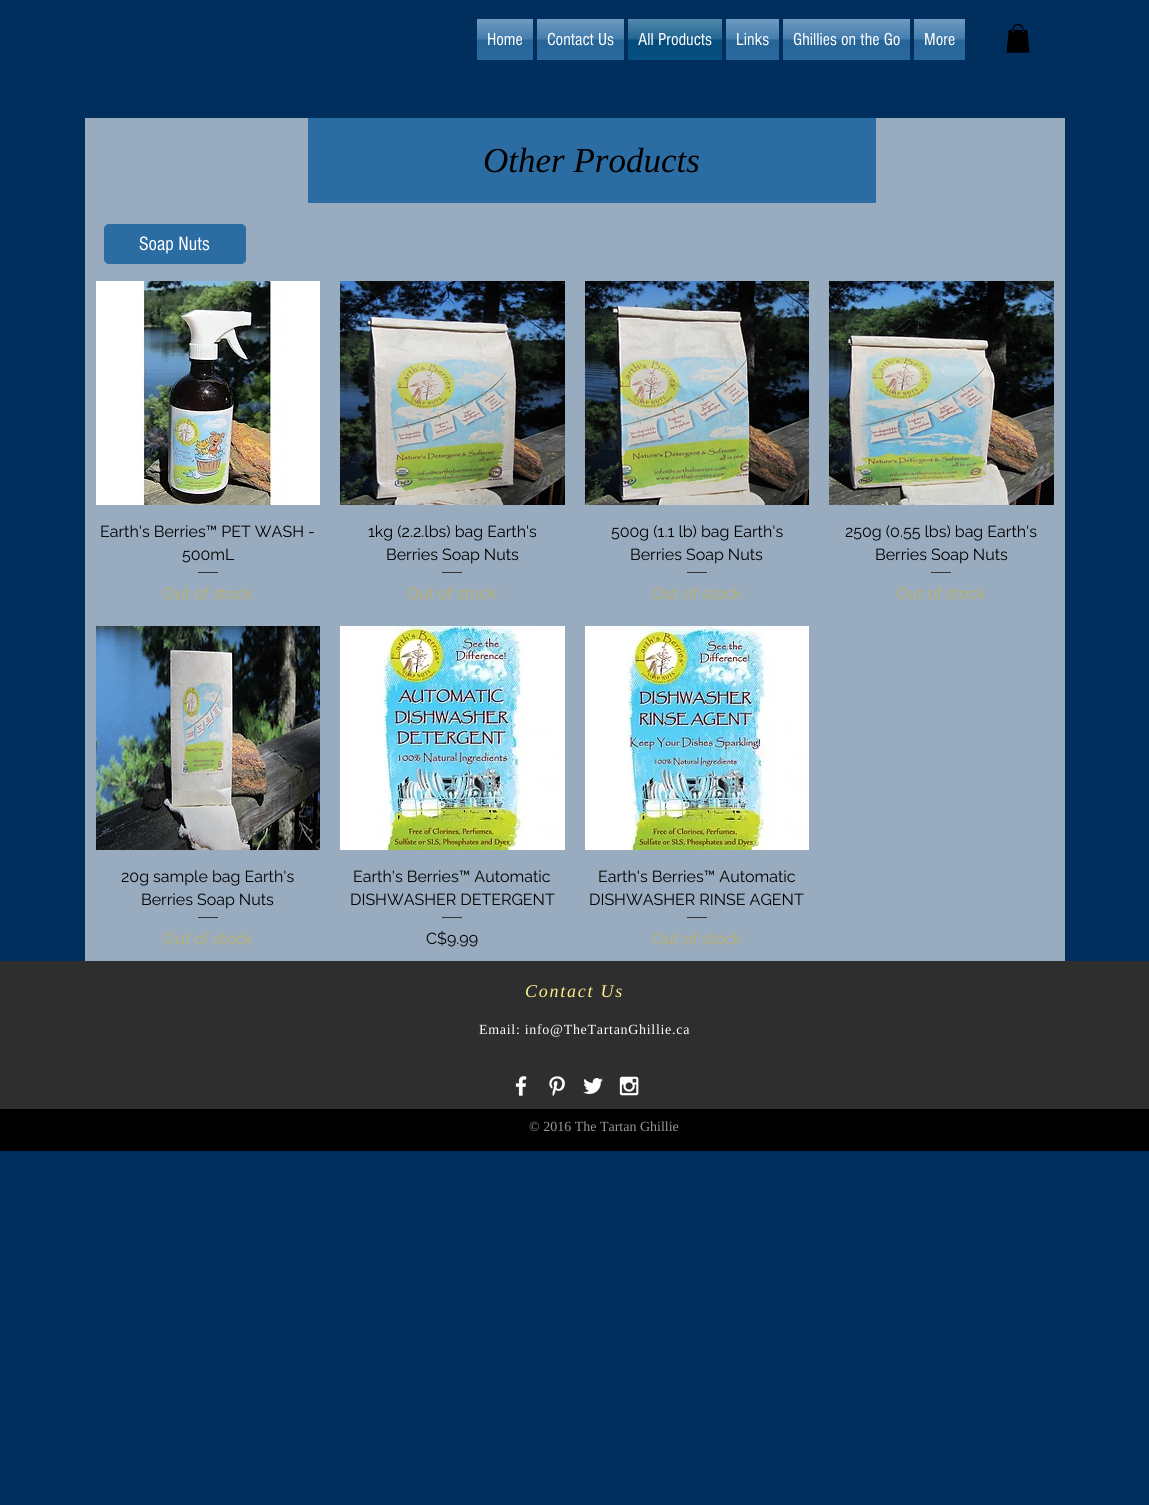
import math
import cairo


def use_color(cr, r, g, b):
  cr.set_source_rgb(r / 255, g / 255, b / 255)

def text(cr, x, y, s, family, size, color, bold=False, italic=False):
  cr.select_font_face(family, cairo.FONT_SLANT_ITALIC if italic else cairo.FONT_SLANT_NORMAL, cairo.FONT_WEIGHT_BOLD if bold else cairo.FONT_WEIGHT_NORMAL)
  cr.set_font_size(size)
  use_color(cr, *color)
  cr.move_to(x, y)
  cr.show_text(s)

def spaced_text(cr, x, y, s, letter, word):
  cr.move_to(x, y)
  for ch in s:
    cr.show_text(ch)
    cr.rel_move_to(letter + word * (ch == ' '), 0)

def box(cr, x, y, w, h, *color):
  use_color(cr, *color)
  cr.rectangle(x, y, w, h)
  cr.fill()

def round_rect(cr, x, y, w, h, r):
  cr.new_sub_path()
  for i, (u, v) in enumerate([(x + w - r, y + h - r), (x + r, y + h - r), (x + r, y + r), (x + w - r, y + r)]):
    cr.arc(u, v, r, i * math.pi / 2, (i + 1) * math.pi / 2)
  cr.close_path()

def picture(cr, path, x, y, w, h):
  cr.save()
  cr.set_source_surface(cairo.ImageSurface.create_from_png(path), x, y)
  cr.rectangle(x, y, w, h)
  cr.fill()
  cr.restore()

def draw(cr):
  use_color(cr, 0, 46, 93)
  cr.paint()
  box(cr, 477, 19, 56, 41, 43, 108, 163)
  picture(cr, "img_01.png", 477, 19, 56, 40)
  box(cr, 537, 19, 87, 41, 43, 108, 163)
  picture(cr, "img_02.png", 537, 19, 87, 40)
  box(cr, 628, 19, 94, 41, 4, 81, 132)
  picture(cr, "img_03.png", 628, 19, 94, 38)
  box(cr, 726, 19, 53, 41, 43, 108, 163)
  picture(cr, "img_04.png", 726, 19, 53, 40)
  box(cr, 783, 19, 127, 41, 43, 108, 163)
  picture(cr, "img_05.png", 783, 19, 127, 40)
  box(cr, 914, 19, 51, 41, 43, 108, 163)
  picture(cr, "img_06.png", 914, 19, 51, 40)
  picture(cr, "img_07.png", 1006, 24, 24, 29)
  box(cr, 85, 118, 980, 843, 153, 171, 190)
  box(cr, 308, 118, 568, 85, 43, 108, 163)
  round_rect(cr, 104, 224, 142, 40, 5)
  cr.fill()
  picture(cr, "img_08.png", 96, 281, 224, 224)
  box(cr, 198, 572, 20, 1, 50, 51, 50)
  picture(cr, "img_09.png", 340, 281, 225, 224)
  box(cr, 442, 572, 20, 1, 50, 51, 50)
  picture(cr, "img_10.png", 585, 281, 224, 224)
  box(cr, 687, 572, 20, 1, 50, 51, 50)
  picture(cr, "img_11.png", 829, 281, 225, 224)
  box(cr, 931, 572, 20, 1, 50, 51, 50)
  picture(cr, "img_12.png", 96, 626, 224, 224)
  box(cr, 198, 917, 20, 1, 50, 51, 50)
  picture(cr, "img_13.png", 340, 626, 225, 224)
  box(cr, 442, 917, 20, 1, 50, 51, 50)
  picture(cr, "img_14.png", 585, 626, 224, 224)
  box(cr, 687, 917, 20, 1, 50, 51, 50)
  box(cr, 0, 961, 1149, 148, 47, 46, 46)
  picture(cr, "img_15.png", 515, 1076, 12, 20)
  picture(cr, "img_16.png", 549, 1076, 16, 20)
  picture(cr, "img_17.png", 583, 1078, 20, 17)
  picture(cr, "img_18.png", 619, 1076, 20, 20)
  box(cr, 0, 1109, 1149, 42, 0, 0, 0)
  text(cr, 487, 45, "Home", "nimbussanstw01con", 18, (255, 255, 255))
  text(cr, 547, 45, "Contact Us", "nimbussanstw01con", 18, (255, 255, 255))
  text(cr, 638, 45, "All Products", "nimbussanstw01con", 18, (255, 255, 255))
  text(cr, 736, 45, "Links", "nimbussanstw01con", 18, (255, 255, 255))
  text(cr, 793, 45, "Ghillies on the Go", "nimbussanstw01con", 18, (255, 255, 255))
  text(cr, 924, 45, "More", "nimbussanstw01con", 18, (255, 255, 255))
  text(cr, 483, 172, "Other Products", "Liberation Serif", 35, (0, 0, 0), italic=True)
  text(cr, 139, 250, "Soap Nuts", "nimbussanstw01con", 20, (255, 255, 255))
  text(cr, 100, 537, "Earth's Berries™ PET WASH -", "Raleway", 16, (0, 0, 0))
  text(cr, 182, 560, "500mL", "Raleway", 16, (0, 0, 0))
  text(cr, 163, 599, "Out of stock", "Raleway", 16, (189, 179, 104))
  text(cr, 368, 537, "1kg (2.2.lbs) bag Earth's", "Raleway", 16, (0, 0, 0))
  text(cr, 386, 560, "Berries Soap Nuts", "Raleway", 16, (0, 0, 0))
  text(cr, 407, 599, "Out of stock", "Raleway", 16, (189, 179, 104))
  text(cr, 611, 537, "500g (1.1 lb) bag Earth's", "Raleway", 16, (0, 0, 0))
  text(cr, 630, 560, "Berries Soap Nuts", "Raleway", 16, (0, 0, 0))
  text(cr, 652, 599, "Out of stock", "Raleway", 16, (189, 179, 104))
  text(cr, 845, 537, "250g (0.55 lbs) bag Earth's", "Raleway", 16, (0, 0, 0))
  text(cr, 875, 560, "Berries Soap Nuts", "Raleway", 16, (0, 0, 0))
  text(cr, 896, 599, "Out of stock", "Raleway", 16, (189, 179, 104))
  text(cr, 121, 882, "20g sample bag Earth's", "Raleway", 16, (0, 0, 0))
  text(cr, 141, 905, "Berries Soap Nuts", "Raleway", 16, (0, 0, 0))
  text(cr, 163, 944, "Out of stock", "Raleway", 16, (189, 179, 104))
  text(cr, 353, 882, "Earth's Berries™ Automatic", "Raleway", 16, (0, 0, 0))
  text(cr, 350, 905, "DISHWASHER DETERGENT", "Raleway", 16, (0, 0, 0))
  text(cr, 426, 944, "C$9.99", "Raleway", 16, (0, 0, 0))
  text(cr, 598, 882, "Earth's Berries™ Automatic", "Raleway", 16, (0, 0, 0))
  text(cr, 589, 905, "DISHWASHER RINSE AGENT", "Raleway", 16, (0, 0, 0))
  text(cr, 652, 944, "Out of stock", "Raleway", 16, (189, 179, 104))
  cr.select_font_face("Liberation Serif", cairo.FONT_SLANT_ITALIC)
  cr.set_font_size(18)
  use_color(cr, 252, 239, 139)
  spaced_text(cr, 525, 997, "Contact Us", 1.75, 0)
  cr.select_font_face("Liberation Serif")
  cr.set_font_size(14)
  use_color(cr, 255, 255, 255)
  spaced_text(cr, 479, 1034, "Email: info@TheTartanGhillie.ca", 0.7, 0)
  text(cr, 529, 1131, "© 2016 The Tartan Ghillie", "Liberation Serif", 14, (151, 152, 151))


surface = cairo.ImageSurface(cairo.FORMAT_RGB24, 1149, 1505)
cr = cairo.Context(surface)
options = cairo.FontOptions()
options.set_hint_metrics(cairo.HINT_METRICS_OFF)
options.set_hint_style(cairo.HINT_STYLE_NONE)
cr.set_font_options(options)
cr.set_miter_limit(4)
draw(cr)
surface.write_to_png("out.png")
